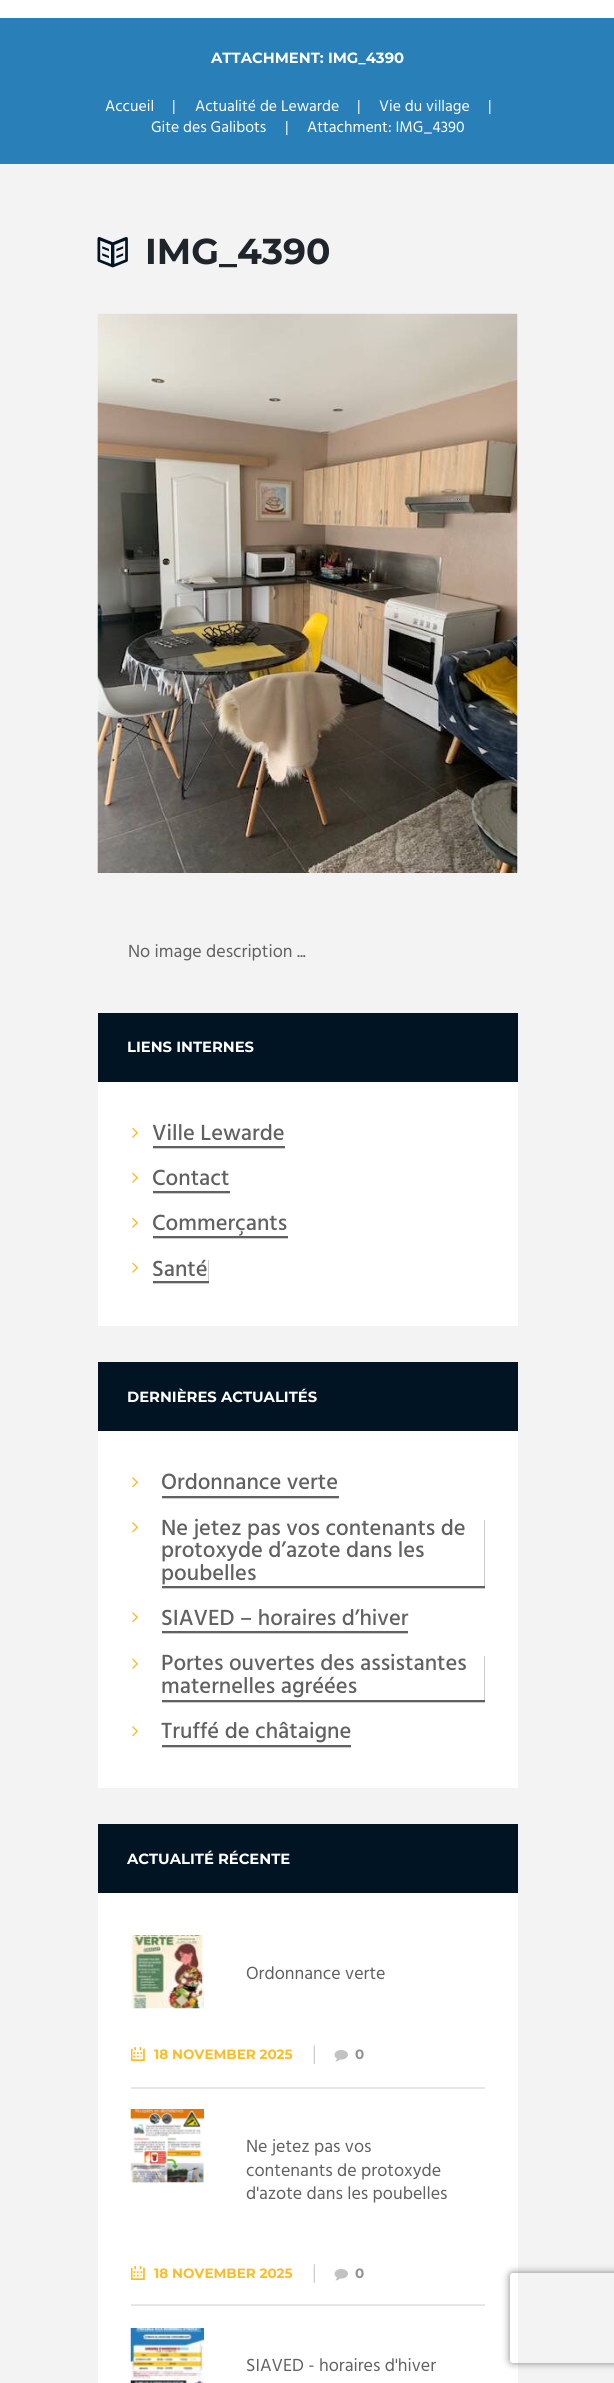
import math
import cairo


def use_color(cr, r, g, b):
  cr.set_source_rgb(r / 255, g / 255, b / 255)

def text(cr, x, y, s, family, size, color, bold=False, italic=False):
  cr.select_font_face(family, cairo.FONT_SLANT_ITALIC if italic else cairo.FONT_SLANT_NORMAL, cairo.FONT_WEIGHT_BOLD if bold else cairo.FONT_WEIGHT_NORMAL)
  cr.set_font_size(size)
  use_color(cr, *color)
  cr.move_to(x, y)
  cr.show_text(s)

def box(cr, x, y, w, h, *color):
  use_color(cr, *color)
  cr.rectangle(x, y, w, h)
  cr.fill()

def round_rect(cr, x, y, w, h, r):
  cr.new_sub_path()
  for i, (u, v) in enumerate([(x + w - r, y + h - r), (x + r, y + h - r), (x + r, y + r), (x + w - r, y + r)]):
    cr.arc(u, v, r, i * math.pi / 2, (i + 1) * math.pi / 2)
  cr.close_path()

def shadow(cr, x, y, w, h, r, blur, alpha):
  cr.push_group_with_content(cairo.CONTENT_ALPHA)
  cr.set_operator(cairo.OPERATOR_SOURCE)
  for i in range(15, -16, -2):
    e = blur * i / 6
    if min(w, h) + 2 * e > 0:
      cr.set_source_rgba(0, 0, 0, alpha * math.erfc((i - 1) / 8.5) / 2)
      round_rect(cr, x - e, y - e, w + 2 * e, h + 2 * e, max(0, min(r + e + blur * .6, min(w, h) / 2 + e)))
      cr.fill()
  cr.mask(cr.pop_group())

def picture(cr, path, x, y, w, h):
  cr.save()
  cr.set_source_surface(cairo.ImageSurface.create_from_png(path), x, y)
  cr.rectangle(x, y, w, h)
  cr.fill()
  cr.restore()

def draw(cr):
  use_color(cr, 243, 243, 243)
  cr.paint()
  box(cr, 0, 0, 614, 18, 255, 255, 255)
  box(cr, 0, 18, 614, 146, 41, 128, 185)
  picture(cr, "img_01.png", 97, 237, 31, 31)
  picture(cr, "img_02.png", 97, 313, 421, 560)
  box(cr, 98, 1082, 420, 244, 255, 255, 255)
  box(cr, 98, 1013, 420, 69, 1, 20, 36)
  picture(cr, "img_03.png", 132, 1127, 6, 11)
  box(cr, 153, 1148, 132, 1, 204, 204, 204)
  box(cr, 153, 1146, 132, 2, 97, 97, 97)
  picture(cr, "img_03.png", 132, 1172, 6, 11)
  use_color(cr, 204, 204, 204)
  cr.new_path()
  cr.move_to(153, 1192)
  cr.line_to(153, 1194)
  cr.line_to(230, 1194)
  cr.line_to(230, 1170)
  cr.line_to(230, 1192)
  cr.close_path()
  cr.fill()
  box(cr, 153, 1191, 77, 2, 97, 97, 97)
  picture(cr, "img_03.png", 132, 1217, 6, 11)
  box(cr, 153, 1238, 135, 1, 204, 204, 204)
  box(cr, 153, 1236, 135, 2, 97, 97, 97)
  picture(cr, "img_03.png", 132, 1262, 6, 11)
  use_color(cr, 204, 204, 204)
  cr.new_path()
  cr.move_to(153, 1282)
  cr.line_to(153, 1284)
  cr.line_to(209, 1284)
  cr.line_to(209, 1260)
  cr.line_to(208, 1260)
  cr.line_to(208, 1282)
  cr.close_path()
  cr.fill()
  box(cr, 153, 1281, 56, 2, 97, 97, 97)
  box(cr, 98, 1431, 420, 357, 255, 255, 255)
  box(cr, 98, 1362, 420, 69, 1, 20, 36)
  picture(cr, "img_04.png", 132, 1477, 6, 11)
  box(cr, 162, 1498, 177, 1, 204, 204, 204)
  box(cr, 162, 1496, 177, 2, 97, 97, 97)
  picture(cr, "img_04.png", 132, 1522, 6, 11)
  use_color(cr, 204, 204, 204)
  cr.new_path()
  cr.move_to(162, 1587)
  cr.line_to(162, 1589)
  cr.line_to(485, 1589)
  cr.line_to(485, 1520)
  cr.line_to(484, 1520)
  cr.line_to(484, 1587)
  cr.close_path()
  cr.fill()
  box(cr, 162, 1586, 323, 2, 97, 97, 97)
  picture(cr, "img_04.png", 132, 1612, 6, 11)
  box(cr, 162, 1633, 246, 1, 204, 204, 204)
  box(cr, 162, 1631, 246, 2, 97, 97, 97)
  picture(cr, "img_03.png", 132, 1658, 6, 11)
  use_color(cr, 204, 204, 204)
  cr.new_path()
  cr.move_to(162, 1701)
  cr.line_to(162, 1703)
  cr.line_to(485, 1703)
  cr.line_to(485, 1656)
  cr.line_to(484, 1656)
  cr.line_to(484, 1701)
  cr.close_path()
  cr.fill()
  box(cr, 162, 1700, 323, 2, 97, 97, 97)
  picture(cr, "img_04.png", 132, 1726, 6, 11)
  box(cr, 162, 1747, 189, 1, 204, 204, 204)
  box(cr, 162, 1745, 189, 2, 97, 97, 97)
  box(cr, 98, 1893, 420, 490, 255, 255, 255)
  box(cr, 98, 1824, 420, 69, 1, 20, 36)
  picture(cr, "img_05.png", 130, 1935, 74, 74)
  picture(cr, "img_06.png", 131, 2047, 14, 14)
  picture(cr, "img_07.png", 334, 2050, 14, 12)
  box(cr, 131, 2087, 354, 2, 230, 230, 230)
  picture(cr, "img_08.png", 130, 2109, 74, 74)
  picture(cr, "img_06.png", 131, 2266, 14, 14)
  picture(cr, "img_07.png", 334, 2269, 14, 12)
  box(cr, 131, 2304, 354, 2, 230, 230, 230)
  picture(cr, "img_09.png", 130, 2328, 74, 55)
  cr.save()
  cr.set_fill_rule(cairo.FILL_RULE_EVEN_ODD)
  cr.new_path()
  cr.move_to(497, 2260)
  cr.line_to(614, 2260)
  cr.line_to(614, 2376)
  cr.line_to(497, 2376)
  cr.close_path()
  cr.move_to(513, 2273)
  cr.line_to(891, 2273)
  cr.curve_to(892.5, 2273, 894, 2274.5, 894, 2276)
  cr.line_to(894, 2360)
  cr.curve_to(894, 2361.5, 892.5, 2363, 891, 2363)
  cr.line_to(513, 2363)
  cr.curve_to(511.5, 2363, 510, 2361.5, 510, 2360)
  cr.line_to(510, 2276)
  cr.curve_to(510, 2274.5, 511.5, 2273, 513, 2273)
  cr.close_path()
  cr.clip()
  use_color(cr, 128, 128, 128)
  shadow(cr, 510, 2273, 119, 90, 3, 4, 1)
  cr.restore()
  text(cr, 211, 63, "ATTACHMENT: IMG_4390", "Montserrat", 14.8, (255, 255, 255), bold=True)
  text(cr, 105, 111, "Accueil", "Hind", 15.75, (255, 255, 255))
  text(cr, 172, 111, "|", "Hind", 15.75, (255, 255, 255))
  text(cr, 195, 111, "Actualité de Lewarde", "Hind", 15.75, (255, 255, 255))
  text(cr, 357, 111, "|", "Hind", 15.75, (255, 255, 255))
  text(cr, 379, 111, "Vie du village", "Hind", 15.75, (255, 255, 255))
  text(cr, 488, 111, "|", "Hind", 15.75, (255, 255, 255))
  text(cr, 151, 132, "Gite des Galibots", "Hind", 15.75, (255, 255, 255))
  text(cr, 285, 132, "|", "Hind", 15.75, (255, 255, 255))
  text(cr, 307, 132, "Attachment: IMG_4390", "Hind", 15.75, (255, 255, 255))
  text(cr, 145, 264, "IMG_4390", "Montserrat", 36, (31, 37, 43), bold=True)
  text(cr, 128, 957, "No image description ...", "Hind", 18, (97, 97, 97))
  text(cr, 127, 1052, "LIENS INTERNES", "Montserrat", 14.75, (255, 255, 255), bold=True)
  text(cr, 152, 1140, "Ville Lewarde", "Hind Medium", 22.5, (97, 97, 97))
  text(cr, 152, 1185, "Contact", "Hind Medium", 22.5, (97, 97, 97))
  text(cr, 152, 1230, "Commerçants", "Hind Medium", 22.5, (97, 97, 97))
  text(cr, 152, 1276, "Santé", "Hind Medium", 22.5, (97, 97, 97))
  text(cr, 127, 1402, "DERNIÈRES ACTUALITÉS", "Montserrat", 14.75, (255, 255, 255), bold=True)
  text(cr, 161, 1489, "Ordonnance verte", "Hind Medium", 22.5, (97, 97, 97))
  text(cr, 161, 1535, "Ne jetez pas vos contenants de", "Hind Medium", 22.5, (97, 97, 97))
  text(cr, 161, 1557, "protoxyde d’azote dans les", "Hind Medium", 22.5, (97, 97, 97))
  text(cr, 161, 1580, "poubelles", "Hind Medium", 22.5, (97, 97, 97))
  text(cr, 161, 1625, "SIAVED – horaires d’hiver", "Hind Medium", 22.5, (97, 97, 97))
  text(cr, 161, 1670, "Portes ouvertes des assistantes", "Hind Medium", 22.5, (97, 97, 97))
  text(cr, 161, 1693, "maternelles agréées", "Hind Medium", 22.5, (97, 97, 97))
  text(cr, 161, 1738, "Truffé de châtaigne", "Hind Medium", 22.5, (97, 97, 97))
  text(cr, 127, 1864, "ACTUALITÉ RÉCENTE", "Montserrat", 14.75, (255, 255, 255), bold=True)
  text(cr, 246, 1979, "Ordonnance verte", "Hind", 18, (97, 97, 97))
  text(cr, 154, 2059, "18 NOVEMBER 2025", "Montserrat", 13.5, (250, 189, 39), bold=True)
  cr.save()
  cr.rectangle(131, 1935, 354, 129)
  cr.clip()
  text(cr, 311, 2062, "|", "Montserrat Light", 22.5, (194, 194, 194))
  cr.restore()
  text(cr, 355, 2059, "0", "Montserrat", 13.5, (145, 145, 145), bold=True)
  text(cr, 246, 2152, "Ne jetez pas vos", "Hind", 18, (97, 97, 97))
  text(cr, 246, 2176, "contenants de protoxyde", "Hind", 18, (97, 97, 97))
  text(cr, 246, 2199, "d'azote dans les poubelles", "Hind", 18, (97, 97, 97))
  text(cr, 154, 2278, "18 NOVEMBER 2025", "Montserrat", 13.5, (250, 189, 39), bold=True)
  cr.save()
  cr.rectangle(131, 2088, 354, 195)
  cr.clip()
  text(cr, 311, 2281, "|", "Montserrat Light", 22.5, (194, 194, 194))
  cr.restore()
  text(cr, 355, 2278, "0", "Montserrat", 13.5, (145, 145, 145), bold=True)
  text(cr, 246, 2371, "SIAVED - horaires d'hiver", "Hind", 18, (97, 97, 97))


surface = cairo.ImageSurface(cairo.FORMAT_RGB24, 614, 2383)
cr = cairo.Context(surface)
options = cairo.FontOptions()
options.set_hint_metrics(cairo.HINT_METRICS_OFF)
options.set_hint_style(cairo.HINT_STYLE_NONE)
cr.set_font_options(options)
cr.set_miter_limit(4)
draw(cr)
surface.write_to_png("out.png")
